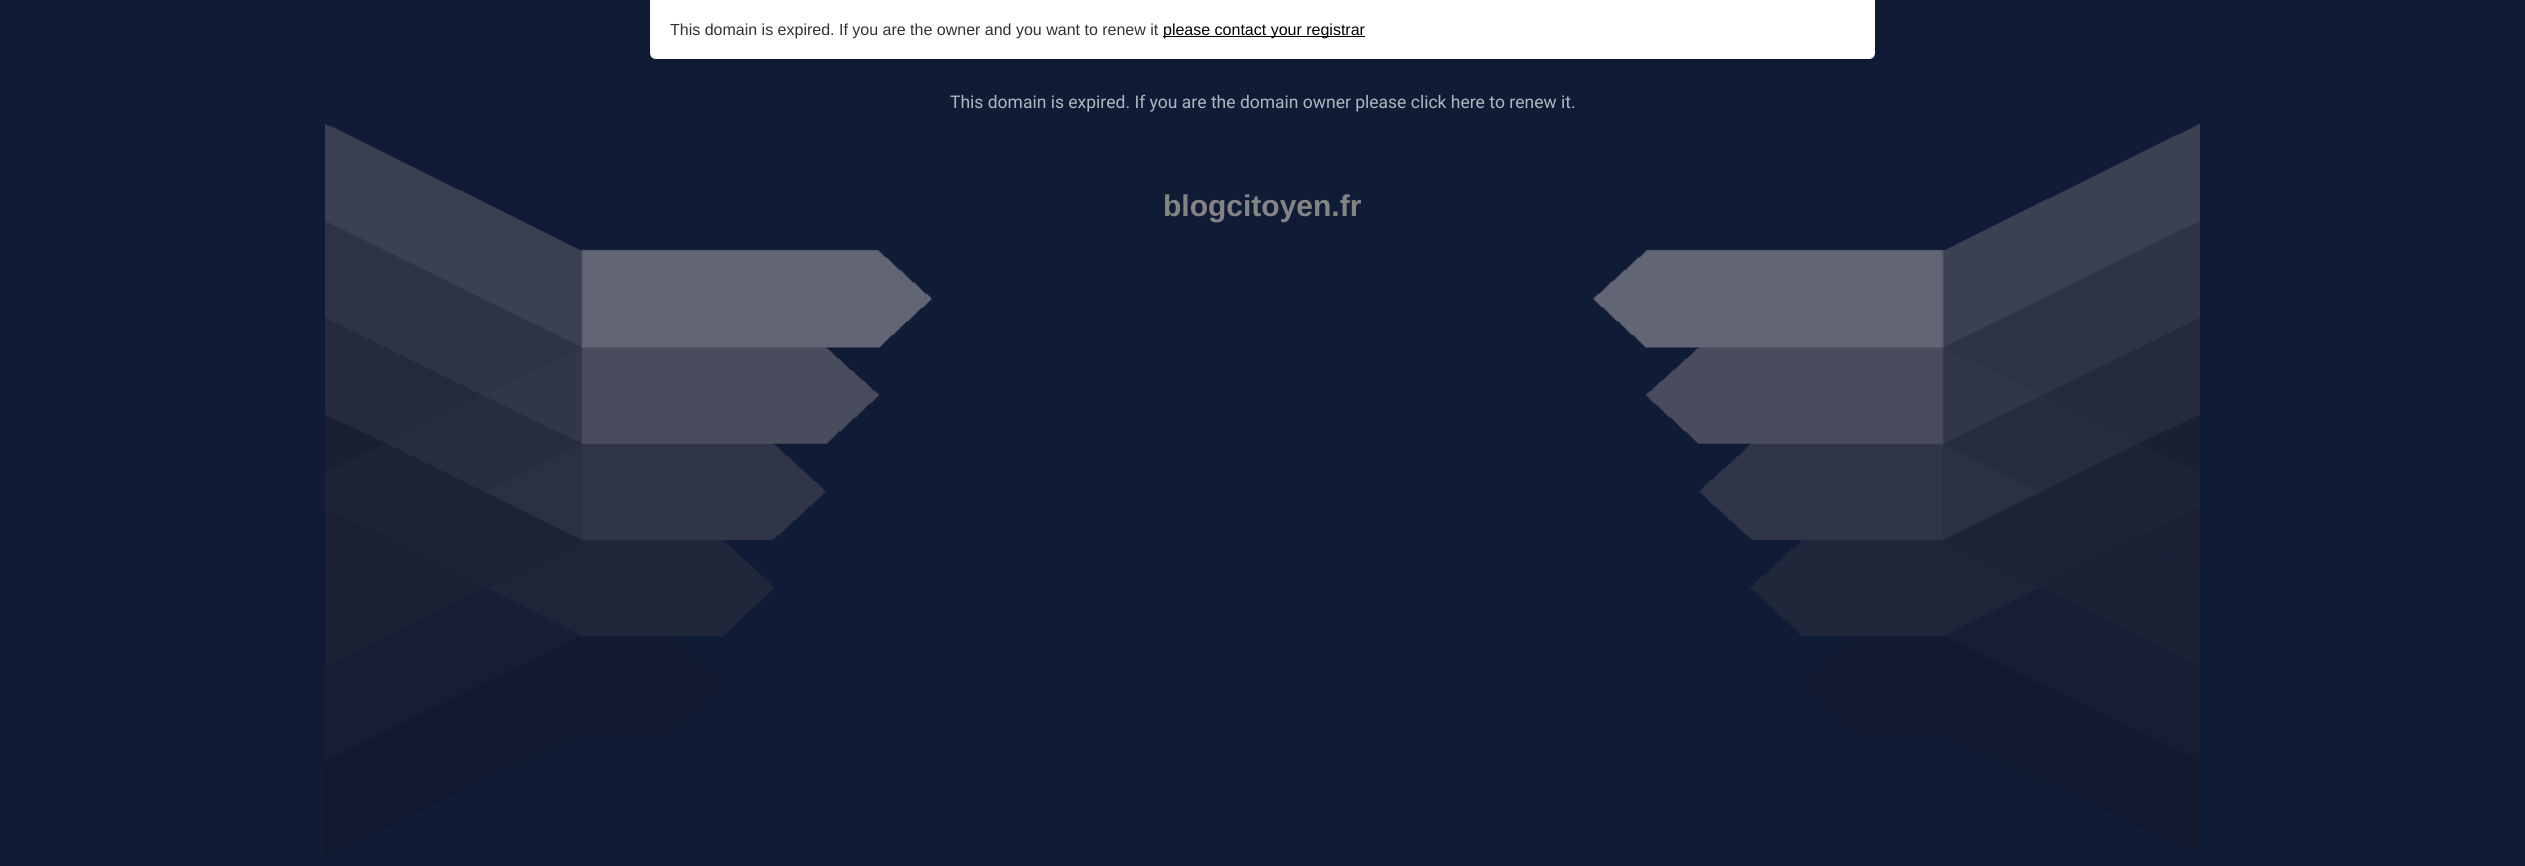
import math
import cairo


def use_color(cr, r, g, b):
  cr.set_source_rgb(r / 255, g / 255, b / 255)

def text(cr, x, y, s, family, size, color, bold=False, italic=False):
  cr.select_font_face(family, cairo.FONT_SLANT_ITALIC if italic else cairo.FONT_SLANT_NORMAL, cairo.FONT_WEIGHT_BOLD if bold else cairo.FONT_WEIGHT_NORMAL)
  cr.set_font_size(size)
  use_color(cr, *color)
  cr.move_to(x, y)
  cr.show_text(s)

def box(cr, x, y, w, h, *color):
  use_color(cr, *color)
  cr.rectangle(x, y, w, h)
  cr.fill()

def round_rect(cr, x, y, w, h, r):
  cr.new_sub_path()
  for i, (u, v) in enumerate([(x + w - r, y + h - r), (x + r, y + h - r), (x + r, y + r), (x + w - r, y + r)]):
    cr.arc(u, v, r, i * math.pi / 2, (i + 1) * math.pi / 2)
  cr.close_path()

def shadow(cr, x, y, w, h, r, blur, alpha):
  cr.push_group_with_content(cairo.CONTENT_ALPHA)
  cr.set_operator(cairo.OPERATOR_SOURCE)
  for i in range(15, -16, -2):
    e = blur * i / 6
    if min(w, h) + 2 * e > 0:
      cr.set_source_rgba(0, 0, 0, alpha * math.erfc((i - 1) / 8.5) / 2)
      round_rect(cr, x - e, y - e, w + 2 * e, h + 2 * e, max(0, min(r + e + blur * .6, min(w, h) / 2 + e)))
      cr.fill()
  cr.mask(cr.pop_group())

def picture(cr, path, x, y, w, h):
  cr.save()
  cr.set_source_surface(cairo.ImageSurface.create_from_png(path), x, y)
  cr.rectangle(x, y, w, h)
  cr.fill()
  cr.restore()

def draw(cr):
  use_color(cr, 16, 28, 54)
  cr.paint()
  use_color(cr, 0, 0, 0)
  shadow(cr, 650, 1, 1225, 59, 6, 4, 0.2)
  use_color(cr, 255, 255, 255)
  cr.new_path()
  cr.move_to(650, 0)
  cr.line_to(1875, 0)
  cr.line_to(1875, 53)
  cr.curve_to(1875, 56.5, 1872.5, 59, 1869, 59)
  cr.line_to(656, 59)
  cr.curve_to(652.5, 59, 650, 56.5, 650, 53)
  cr.close_path()
  cr.fill()
  box(cr, 1163, 36, 202, 1, 0, 0, 0)
  picture(cr, "img_01.png", 325, 123, 1875, 733)
  text(cr, 670, 35, "This domain is expired. If you are the owner and you want to renew it", "Liberation Sans", 16, (49, 49, 49))
  text(cr, 1163, 35, "please contact your registrar", "Liberation Sans", 16, (0, 0, 0))
  text(cr, 950, 108, "This domain is expired. If you are the domain owner please click here to renew it.", "Roboto", 17.5, (171, 184, 191))
  text(cr, 1163, 216, "blogcitoyen.fr", "Liberation Sans", 30, (132, 132, 132), bold=True)


surface = cairo.ImageSurface(cairo.FORMAT_RGB24, 2525, 866)
cr = cairo.Context(surface)
options = cairo.FontOptions()
options.set_hint_metrics(cairo.HINT_METRICS_OFF)
options.set_hint_style(cairo.HINT_STYLE_NONE)
cr.set_font_options(options)
cr.set_miter_limit(4)
draw(cr)
surface.write_to_png("out.png")
